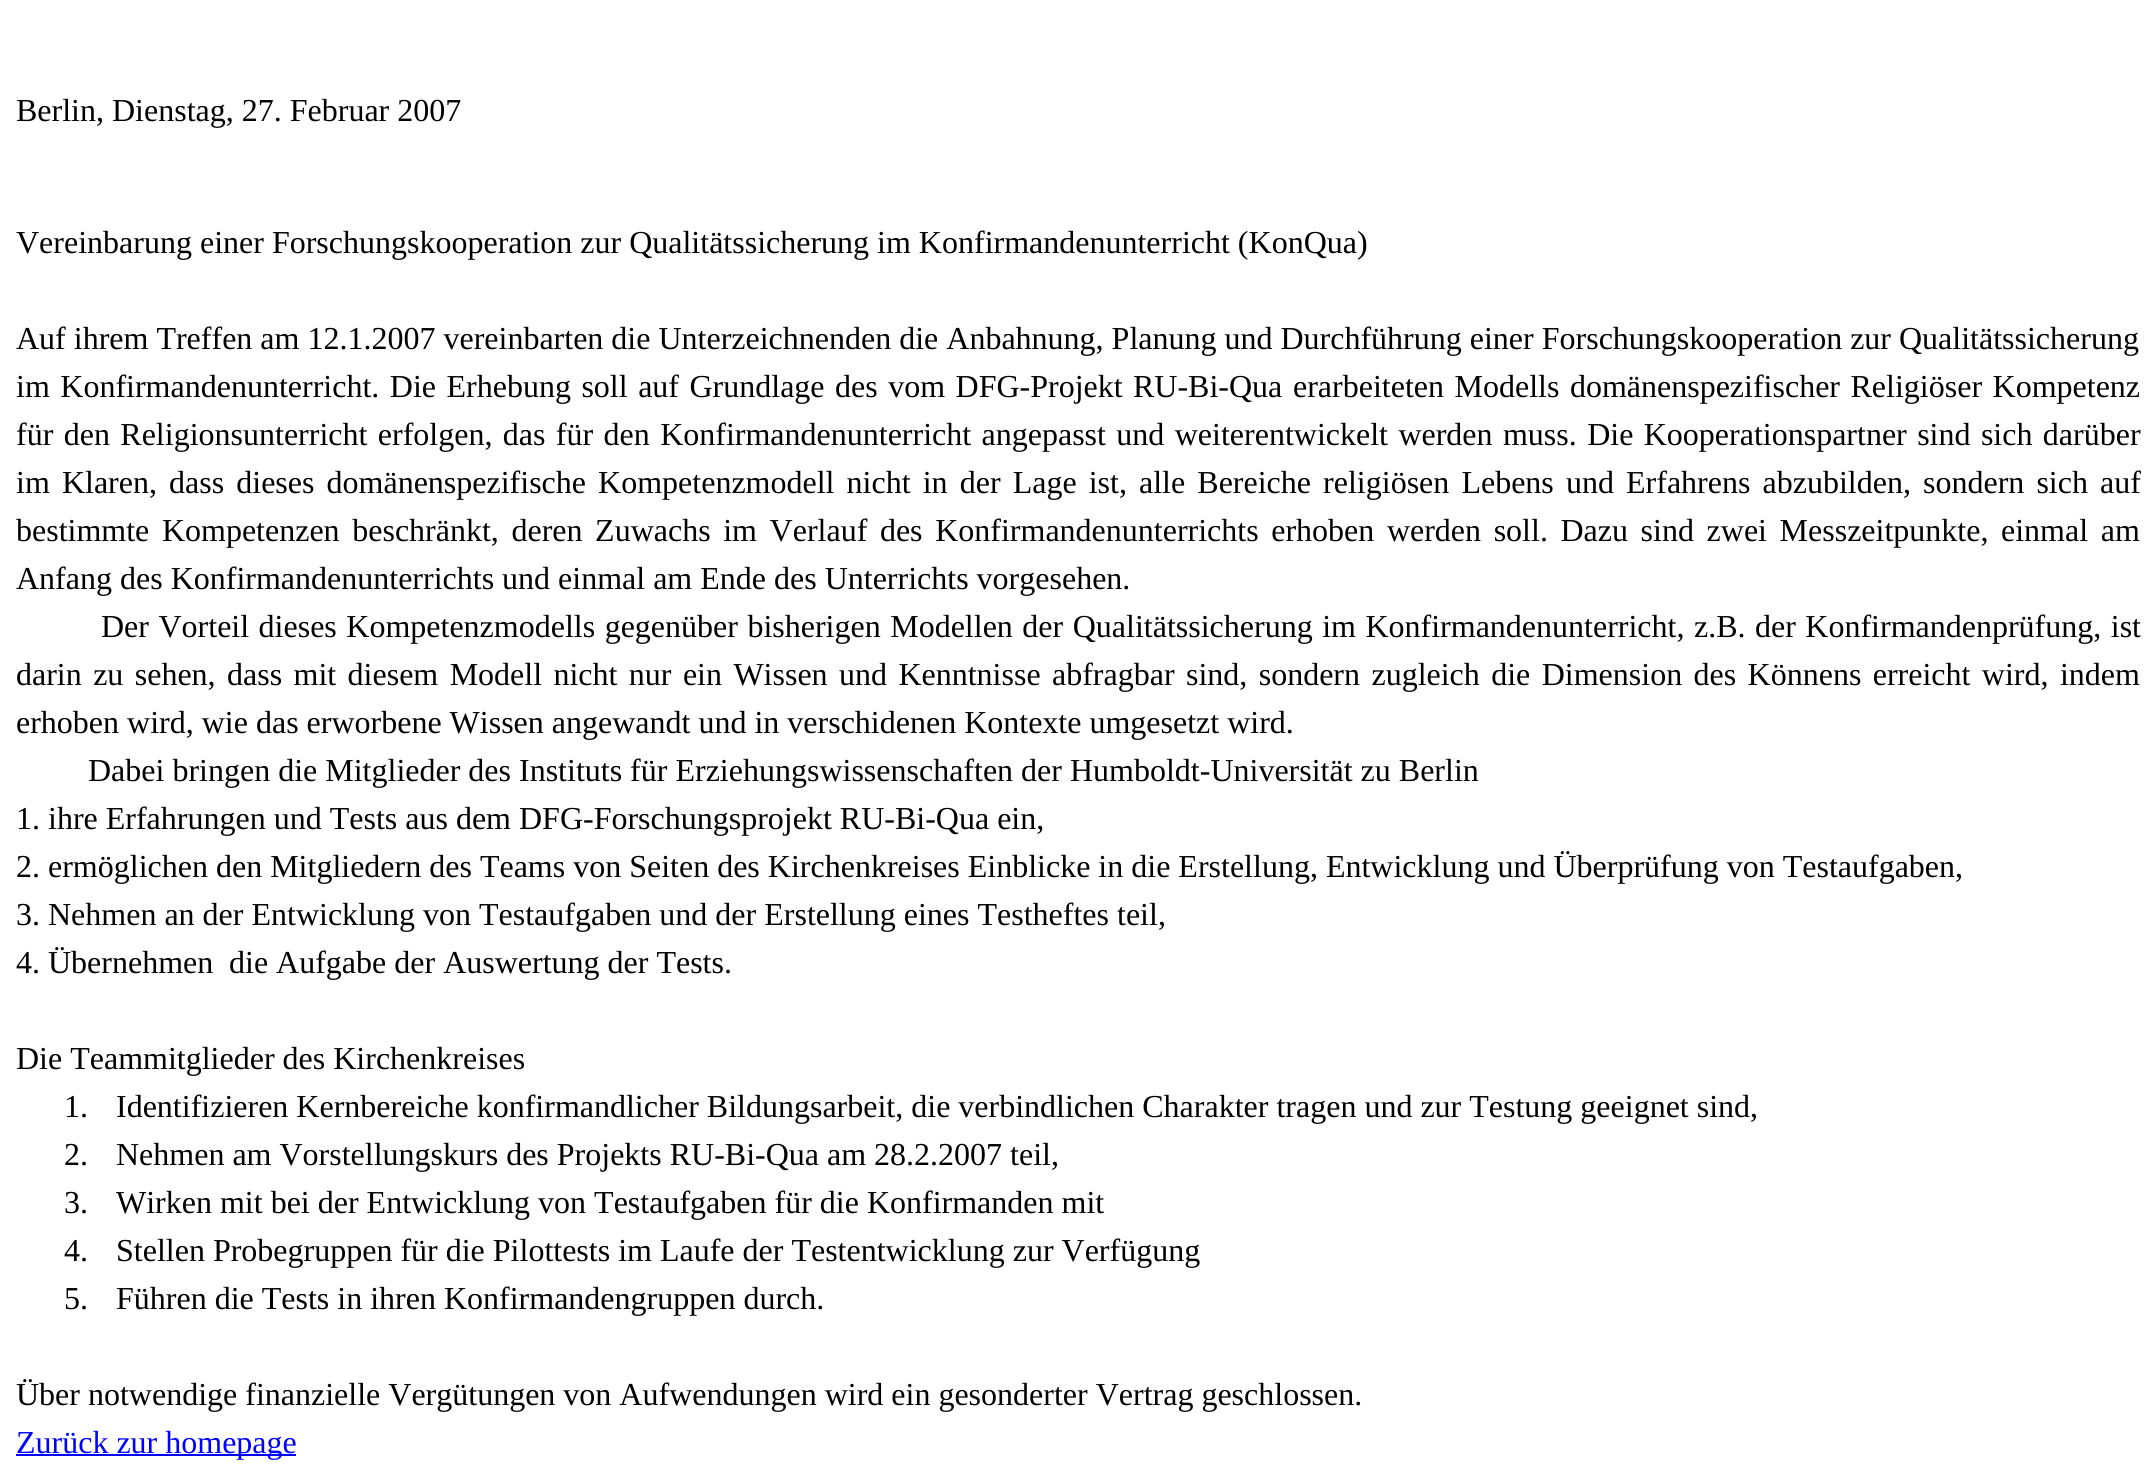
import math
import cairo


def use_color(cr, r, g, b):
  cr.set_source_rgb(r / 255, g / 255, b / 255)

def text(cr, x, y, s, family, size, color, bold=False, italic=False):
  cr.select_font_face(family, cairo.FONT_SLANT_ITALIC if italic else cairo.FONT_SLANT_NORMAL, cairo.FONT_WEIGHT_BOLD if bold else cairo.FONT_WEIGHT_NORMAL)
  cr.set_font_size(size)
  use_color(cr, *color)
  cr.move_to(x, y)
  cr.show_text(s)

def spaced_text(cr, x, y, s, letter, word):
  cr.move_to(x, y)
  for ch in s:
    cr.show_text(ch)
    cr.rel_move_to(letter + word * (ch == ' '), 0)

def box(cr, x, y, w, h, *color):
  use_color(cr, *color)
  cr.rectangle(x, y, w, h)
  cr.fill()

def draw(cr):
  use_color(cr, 255, 255, 255)
  cr.paint()
  box(cr, 16, 1454, 280, 2, 0, 0, 255)
  text(cr, 16, 121, "Berlin, Dienstag, 27. Februar 2007", "Liberation Serif", 32, (0, 0, 0))
  text(cr, 16, 253, "Vereinbarung einer Forschungskooperation zur Qualitätssicherung im Konfirmandenunterricht (KonQua)", "Liberation Serif", 32, (0, 0, 0))
  text(cr, 16, 349, "Auf ihrem Treffen am 12.1.2007 vereinbarten die Unterzeichnenden die Anbahnung, Planung und Durchführung einer Forschungskooperation zur Qualitätssicherung", "Liberation Serif", 32, (0, 0, 0))
  spaced_text(cr, 16, 397, "im Konfirmandenunterricht. Die Erhebung soll auf Grundlage des vom DFG-Projekt", 0, 2.5)
  text(cr, 1133, 397, "RU-Bi-Qua", "Liberation Serif", 32, (0, 0, 0))
  spaced_text(cr, 1293, 397, "erarbeiteten Modells domänenspezifischer Religiöser Kompetenz", 0, 2.5)
  spaced_text(cr, 16, 445, "für den Religionsunterricht erfolgen, das für den Konfirmandenunterricht angepasst und weiterentwickelt werden muss. Die Kooperationspartner sind sich darüber", 0, 2.4)
  spaced_text(cr, 16, 493, "im Klaren, dass dieses domänenspezifische Kompetenzmodell nicht in der Lage ist, alle Bereiche religiösen Lebens und Erfahrens abzubilden, sondern sich auf", 0, 4.1)
  spaced_text(cr, 16, 541, "bestimmte Kompetenzen beschränkt, deren Zuwachs im Verlauf des Konfirmandenunterrichts erhoben werden soll. Dazu sind zwei Messzeitpunkte, einmal am", 0, 4.6)
  text(cr, 16, 589, "Anfang des Konfirmandenunterrichts und einmal am Ende des Unterrichts vorgesehen.", "Liberation Serif", 32, (0, 0, 0))
  spaced_text(cr, 101, 637, "Der Vorteil dieses Kompetenzmodells gegenüber bisherigen Modellen der Qualitätssicherung im Konfirmandenunterricht, z.B. der Konfirmandenprüfung, ist", 0, 1.5)
  spaced_text(cr, 16, 685, "darin zu sehen, dass mit diesem Modell nicht nur ein Wissen und Kenntnisse abfragbar sind, sondern zugleich die Dimension des Könnens erreicht wird, indem", 0, 3.4)
  text(cr, 16, 733, "erhoben wird, wie das erworbene Wissen angewandt und in verschidenen Kontexte umgesetzt wird.", "Liberation Serif", 32, (0, 0, 0))
  text(cr, 88, 781, "Dabei bringen die Mitglieder des Instituts für Erziehungswissenschaften der Humboldt-Universität zu Berlin", "Liberation Serif", 32, (0, 0, 0))
  text(cr, 16, 829, "1. ihre Erfahrungen und Tests aus dem DFG-Forschungsprojekt RU-Bi-Qua ein,", "Liberation Serif", 32, (0, 0, 0))
  text(cr, 16, 877, "2. ermöglichen den Mitgliedern des Teams von Seiten des Kirchenkreises Einblicke in die Erstellung, Entwicklung und Überprüfung von Testaufgaben,", "Liberation Serif", 32, (0, 0, 0))
  text(cr, 16, 925, "3. Nehmen an der Entwicklung von Testaufgaben und der Erstellung eines Testheftes teil,", "Liberation Serif", 32, (0, 0, 0))
  text(cr, 16, 973, "4. Übernehmen", "Liberation Serif", 32, (0, 0, 0))
  text(cr, 229, 973, "die Aufgabe der Auswertung der Tests.", "Liberation Serif", 32, (0, 0, 0))
  text(cr, 16, 1069, "Die Teammitglieder des Kirchenkreises", "Liberation Serif", 32, (0, 0, 0))
  text(cr, 64, 1117, "1.", "Liberation Serif", 32, (0, 0, 0))
  text(cr, 116, 1117, "Identifizieren Kernbereiche konfirmandlicher Bildungsarbeit, die verbindlichen Charakter tragen und zur Testung geeignet sind,", "Liberation Serif", 32, (0, 0, 0))
  text(cr, 64, 1165, "2.", "Liberation Serif", 32, (0, 0, 0))
  text(cr, 116, 1165, "Nehmen am Vorstellungskurs des Projekts RU-Bi-Qua am 28.2.2007 teil,", "Liberation Serif", 32, (0, 0, 0))
  text(cr, 64, 1213, "3.", "Liberation Serif", 32, (0, 0, 0))
  text(cr, 116, 1213, "Wirken mit bei der Entwicklung von Testaufgaben für die Konfirmanden mit", "Liberation Serif", 32, (0, 0, 0))
  text(cr, 64, 1261, "4.", "Liberation Serif", 32, (0, 0, 0))
  text(cr, 116, 1261, "Stellen Probegruppen für die Pilottests im Laufe der Testentwicklung zur Verfügung", "Liberation Serif", 32, (0, 0, 0))
  text(cr, 64, 1309, "5.", "Liberation Serif", 32, (0, 0, 0))
  text(cr, 116, 1309, "Führen die Tests in ihren Konfirmandengruppen durch.", "Liberation Serif", 32, (0, 0, 0))
  text(cr, 16, 1405, "Über notwendige finanzielle Vergütungen von Aufwendungen wird ein gesonderter Vertrag geschlossen.", "Liberation Serif", 32, (0, 0, 0))
  text(cr, 16, 1453, "Zurück zur homepage", "Liberation Serif", 32, (0, 0, 255))


surface = cairo.ImageSurface(cairo.FORMAT_RGB24, 2156, 1479)
cr = cairo.Context(surface)
options = cairo.FontOptions()
options.set_hint_metrics(cairo.HINT_METRICS_OFF)
options.set_hint_style(cairo.HINT_STYLE_NONE)
cr.set_font_options(options)
cr.set_miter_limit(4)
draw(cr)
surface.write_to_png("out.png")
